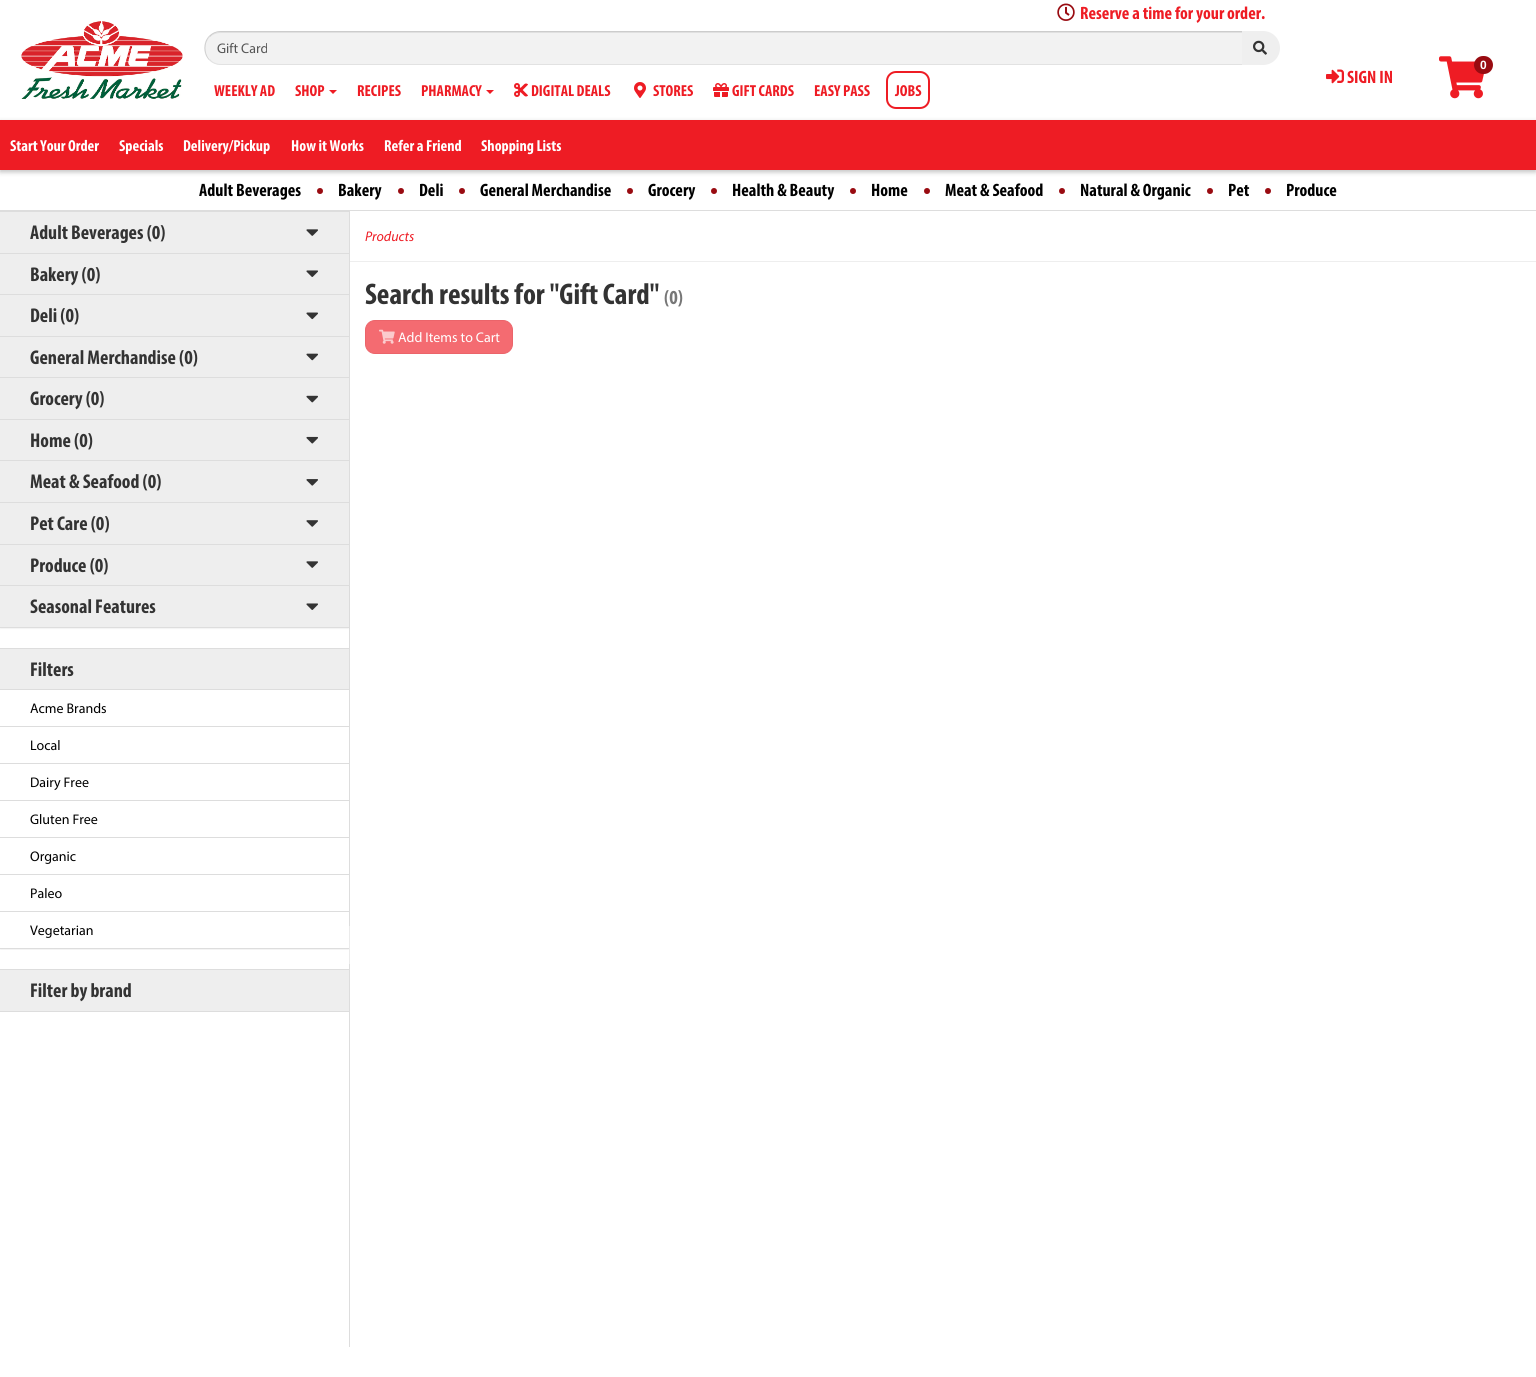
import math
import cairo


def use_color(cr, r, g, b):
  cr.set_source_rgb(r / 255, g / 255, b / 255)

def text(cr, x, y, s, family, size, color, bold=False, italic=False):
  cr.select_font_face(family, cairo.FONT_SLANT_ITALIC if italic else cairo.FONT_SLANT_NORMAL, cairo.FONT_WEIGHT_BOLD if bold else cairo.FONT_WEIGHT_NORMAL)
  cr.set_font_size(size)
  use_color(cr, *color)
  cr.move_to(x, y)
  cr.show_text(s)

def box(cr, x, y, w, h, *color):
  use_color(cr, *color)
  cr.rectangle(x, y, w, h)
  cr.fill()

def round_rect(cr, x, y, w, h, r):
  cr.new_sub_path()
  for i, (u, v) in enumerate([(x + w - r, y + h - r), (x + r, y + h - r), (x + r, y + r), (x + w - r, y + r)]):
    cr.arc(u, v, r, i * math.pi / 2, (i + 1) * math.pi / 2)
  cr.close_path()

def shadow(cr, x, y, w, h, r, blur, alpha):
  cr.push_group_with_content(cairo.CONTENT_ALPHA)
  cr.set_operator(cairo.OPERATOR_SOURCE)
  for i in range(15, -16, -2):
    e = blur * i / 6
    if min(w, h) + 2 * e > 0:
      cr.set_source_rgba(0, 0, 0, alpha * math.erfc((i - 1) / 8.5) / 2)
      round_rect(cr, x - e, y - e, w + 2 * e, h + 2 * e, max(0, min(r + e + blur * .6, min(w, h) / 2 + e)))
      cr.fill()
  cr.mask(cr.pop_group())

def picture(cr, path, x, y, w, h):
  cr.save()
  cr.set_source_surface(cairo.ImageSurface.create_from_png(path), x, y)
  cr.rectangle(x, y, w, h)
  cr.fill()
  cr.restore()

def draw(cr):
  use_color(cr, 255, 255, 255)
  cr.paint()
  picture(cr, "img_01.png", 21, 21, 162, 78)
  picture(cr, "img_02.png", 1057, 3, 18, 18)
  use_color(cr, 242, 242, 242)
  cr.new_path()
  cr.move_to(221, 31)
  cr.line_to(1243, 31)
  cr.line_to(1243, 65)
  cr.line_to(221, 65)
  cr.curve_to(211.5, 65, 204, 57.5, 204, 48)
  cr.curve_to(204, 38.5, 211.5, 31, 221, 31)
  cr.close_path()
  cr.fill()
  use_color(cr, 224, 224, 224)
  cr.new_path()
  cr.move_to(221, 33)
  cr.line_to(1242, 33)
  cr.line_to(1242, 32)
  cr.line_to(221, 32)
  cr.curve_to(212, 32, 205, 39, 205, 48)
  cr.line_to(205, 52)
  cr.curve_to(204, 43, 209, 33, 221, 33)
  cr.close_path()
  cr.fill()
  use_color(cr, 204, 204, 204)
  cr.new_path()
  cr.move_to(221, 31)
  cr.curve_to(216, 31, 212, 33, 209, 36)
  cr.line_to(210, 37)
  cr.curve_to(212, 34, 216, 32, 221, 32)
  cr.line_to(1242, 32)
  cr.line_to(1243, 31)
  cr.close_path()
  cr.fill()
  use_color(cr, 226, 226, 226)
  cr.new_path()
  cr.move_to(1243, 65)
  cr.line_to(1242, 64)
  cr.line_to(221, 64)
  cr.curve_to(216, 64, 212, 62, 210, 59)
  cr.line_to(209, 60)
  cr.curve_to(212, 63, 216, 65, 221, 65)
  cr.close_path()
  cr.fill()
  use_color(cr, 204, 204, 204)
  cr.new_path()
  cr.move_to(209, 36)
  cr.curve_to(203, 42.5, 203, 53.5, 209, 60)
  cr.line_to(209.5, 59.5)
  cr.curve_to(204, 53.5, 204, 42.5, 209.5, 36.5)
  cr.close_path()
  cr.fill()
  use_color(cr, 239, 239, 239)
  cr.new_path()
  cr.move_to(1242, 31)
  cr.line_to(1263, 31)
  cr.curve_to(1272.5, 31, 1280, 38.5, 1280, 48)
  cr.curve_to(1280, 57.5, 1272.5, 65, 1263, 65)
  cr.line_to(1242, 65)
  cr.close_path()
  cr.fill()
  picture(cr, "img_03.png", 1253, 40, 14, 15)
  picture(cr, "img_04.png", 1439, 56, 46, 43)
  use_color(cr, 153, 11, 17)
  round_rect(cr, 1474, 56, 19, 18, 9)
  cr.fill()
  picture(cr, "img_05.png", 1326, 69, 18, 15)
  use_color(cr, 238, 28, 36)
  cr.new_path()
  cr.move_to(329, 90)
  cr.line_to(337, 90)
  cr.line_to(333, 94)
  cr.close_path()
  cr.fill()
  cr.new_path()
  cr.move_to(486, 90)
  cr.line_to(494, 90)
  cr.line_to(490, 94)
  cr.close_path()
  cr.fill()
  picture(cr, "img_06.png", 514, 83, 14, 14)
  picture(cr, "img_07.png", 634, 82, 12, 16)
  picture(cr, "img_08.png", 713, 83, 16, 14)
  round_rect(cr, 887, 72, 42, 36, 9)
  cr.stroke()
  use_color(cr, 0, 0, 0)
  shadow(cr, 0, 122, 1536, 50, 0, 2.5, 0.25)
  box(cr, 0, 120, 1536, 50, 238, 28, 36)
  use_color(cr, 153, 11, 17)
  cr.arc(320, 191, 3, 0, 2 * math.pi)
  cr.fill()
  cr.arc(401, 191, 3, 0, 2 * math.pi)
  cr.fill()
  cr.arc(462, 191, 3, 0, 2 * math.pi)
  cr.fill()
  cr.arc(630, 191, 3, 0, 2 * math.pi)
  cr.fill()
  cr.arc(714, 191, 3, 0, 2 * math.pi)
  cr.fill()
  cr.arc(853, 191, 3, 0, 2 * math.pi)
  cr.fill()
  cr.arc(927, 191, 3, 0, 2 * math.pi)
  cr.fill()
  cr.arc(1062, 191, 3, 0, 2 * math.pi)
  cr.fill()
  cr.arc(1210, 191, 3, 0, 2 * math.pi)
  cr.fill()
  cr.arc(1268, 191, 3, 0, 2 * math.pi)
  cr.fill()
  box(cr, 0, 210, 1536, 1, 221, 221, 221)
  box(cr, 349, 211, 1, 1136, 221, 221, 221)
  box(cr, 349, 926, 1, 38, 235, 235, 235)
  box(cr, 0, 211, 349, 1, 221, 221, 221)
  box(cr, 0, 212, 349, 41, 238, 238, 238)
  picture(cr, "img_09.png", 306, 229, 12, 7)
  box(cr, 0, 253, 349, 1, 221, 221, 221)
  box(cr, 0, 254, 349, 40, 238, 238, 238)
  picture(cr, "img_10.png", 306, 270, 12, 7)
  box(cr, 0, 294, 349, 1, 221, 221, 221)
  box(cr, 0, 295, 349, 41, 238, 238, 238)
  picture(cr, "img_11.png", 306, 312, 12, 8)
  box(cr, 0, 336, 349, 1, 221, 221, 221)
  box(cr, 0, 337, 349, 40, 238, 238, 238)
  picture(cr, "img_12.png", 306, 353, 12, 8)
  box(cr, 0, 377, 349, 1, 221, 221, 221)
  box(cr, 0, 378, 349, 41, 238, 238, 238)
  picture(cr, "img_13.png", 306, 395, 12, 8)
  box(cr, 0, 419, 349, 1, 221, 221, 221)
  box(cr, 0, 420, 349, 40, 238, 238, 238)
  picture(cr, "img_14.png", 306, 436, 12, 8)
  box(cr, 0, 460, 349, 1, 221, 221, 221)
  box(cr, 0, 461, 349, 41, 238, 238, 238)
  picture(cr, "img_15.png", 306, 479, 12, 7)
  box(cr, 0, 502, 349, 1, 221, 221, 221)
  box(cr, 0, 503, 349, 41, 238, 238, 238)
  picture(cr, "img_16.png", 306, 520, 12, 7)
  box(cr, 0, 544, 349, 1, 221, 221, 221)
  box(cr, 0, 545, 349, 40, 238, 238, 238)
  picture(cr, "img_09.png", 306, 561, 12, 7)
  use_color(cr, 0, 0, 0)
  shadow(cr, 0, 586, 349, 43, 0, 0.5, 0.05)
  box(cr, 0, 585, 349, 1, 221, 221, 221)
  box(cr, 0, 627, 349, 1, 221, 221, 221)
  box(cr, 0, 586, 349, 41, 238, 238, 238)
  picture(cr, "img_10.png", 306, 603, 12, 7)
  cr.save()
  cr.rectangle(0, 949, 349, 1)
  cr.clip()
  use_color(cr, 0, 0, 0)
  shadow(cr, 0, 649, 349, 301, 0, 0.5, 0.05)
  cr.restore()
  box(cr, 0, 648, 349, 1, 221, 221, 221)
  box(cr, 0, 948, 349, 1, 221, 221, 221)
  box(cr, 0, 649, 349, 40, 238, 238, 238)
  box(cr, 0, 689, 349, 1, 221, 221, 221)
  box(cr, 0, 726, 349, 1, 221, 221, 221)
  box(cr, 0, 763, 349, 1, 221, 221, 221)
  box(cr, 0, 800, 349, 1, 221, 221, 221)
  box(cr, 0, 837, 349, 1, 221, 221, 221)
  box(cr, 0, 874, 349, 1, 221, 221, 221)
  box(cr, 0, 911, 349, 1, 221, 221, 221)
  box(cr, 0, 969, 349, 1, 221, 221, 221)
  box(cr, 0, 1011, 349, 1, 221, 221, 221)
  box(cr, 0, 970, 349, 41, 238, 238, 238)
  box(cr, 350, 261, 1186, 1, 238, 238, 238)
  use_color(cr, 244, 107, 113)
  round_rect(cr, 365.5, 320.5, 147, 33, 9.5)
  cr.fill_preserve()
  use_color(cr, 235, 100, 106)
  cr.set_line_width(1)
  cr.stroke()
  picture(cr, "img_17.png", 379, 329, 16, 15)
  text(cr, 1080, 19, "Reserve a time for your order.", "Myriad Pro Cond", 18, (238, 28, 36), bold=True)
  text(cr, 217, 53, "Gift Card", "Myriad", 14, (85, 85, 85))
  text(cr, 1480, 69, "0", "Liberation Sans", 12, (255, 255, 255), bold=True)
  text(cr, 1347, 83, "SIGN IN", "Myriad Pro Cond", 18, (238, 28, 36), bold=True)
  text(cr, 214, 96, "WEEKLY AD", "Myriad Pro Cond", 16, (238, 28, 36), bold=True)
  text(cr, 295, 96, "SHOP", "Myriad Pro Cond", 16, (238, 28, 36), bold=True)
  text(cr, 357, 96, "RECIPES", "Myriad Pro Cond", 16, (238, 28, 36), bold=True)
  text(cr, 421, 96, "PHARMACY", "Myriad Pro Cond", 16, (238, 28, 36), bold=True)
  text(cr, 531, 96, "DIGITAL DEALS", "Myriad Pro Cond", 16, (238, 28, 36), bold=True)
  text(cr, 653, 96, "STORES", "Myriad Pro Cond", 16, (238, 28, 36), bold=True)
  text(cr, 732, 96, "GIFT CARDS", "Myriad Pro Cond", 16, (238, 28, 36), bold=True)
  text(cr, 814, 96, "EASY PASS", "Myriad Pro Cond", 16, (238, 28, 36), bold=True)
  text(cr, 895, 96, "JOBS", "Myriad Pro Cond", 16, (238, 28, 36), bold=True)
  text(cr, 10, 151, "Start Your Order", "Myriad Pro Cond", 16, (255, 255, 255), bold=True)
  text(cr, 119, 151, "Specials", "Myriad Pro Cond", 16, (255, 255, 255), bold=True)
  text(cr, 183, 151, "Delivery/Pickup", "Myriad Pro Cond", 16, (255, 255, 255), bold=True)
  text(cr, 291, 151, "How it Works", "Myriad Pro Cond", 16, (255, 255, 255), bold=True)
  text(cr, 384, 151, "Refer a Friend", "Myriad Pro Cond", 16, (255, 255, 255), bold=True)
  text(cr, 481, 151, "Shopping Lists", "Myriad Pro Cond", 16, (255, 255, 255), bold=True)
  text(cr, 199, 196, "Adult Beverages", "Myriad Pro Cond", 18, (0, 0, 0), bold=True)
  text(cr, 338, 196, "Bakery", "Myriad Pro Cond", 18, (0, 0, 0), bold=True)
  text(cr, 419, 196, "Deli", "Myriad Pro Cond", 18, (0, 0, 0), bold=True)
  text(cr, 480, 196, "General Merchandise", "Myriad Pro Cond", 18, (0, 0, 0), bold=True)
  text(cr, 648, 196, "Grocery", "Myriad Pro Cond", 18, (0, 0, 0), bold=True)
  text(cr, 732, 196, "Health & Beauty", "Myriad Pro Cond", 18, (0, 0, 0), bold=True)
  text(cr, 871, 196, "Home", "Myriad Pro Cond", 18, (0, 0, 0), bold=True)
  text(cr, 945, 196, "Meat & Seafood", "Myriad Pro Cond", 18, (0, 0, 0), bold=True)
  text(cr, 1080, 196, "Natural & Organic", "Myriad Pro Cond", 18, (0, 0, 0), bold=True)
  text(cr, 1228, 196, "Pet", "Myriad Pro Cond", 18, (0, 0, 0), bold=True)
  text(cr, 1286, 196, "Produce", "Myriad Pro Cond", 18, (0, 0, 0), bold=True)
  text(cr, 30, 239, "Adult Beverages (0)", "Myriad Pro Cond", 20, (51, 51, 51), bold=True)
  text(cr, 30, 281, "Bakery (0)", "Myriad Pro Cond", 20, (51, 51, 51), bold=True)
  text(cr, 30, 322, "Deli (0)", "Myriad Pro Cond", 20, (51, 51, 51), bold=True)
  text(cr, 30, 364, "General Merchandise (0)", "Myriad Pro Cond", 20, (51, 51, 51), bold=True)
  text(cr, 30, 405, "Grocery (0)", "Myriad Pro Cond", 20, (51, 51, 51), bold=True)
  text(cr, 30, 447, "Home (0)", "Myriad Pro Cond", 20, (51, 51, 51), bold=True)
  text(cr, 30, 488, "Meat & Seafood (0)", "Myriad Pro Cond", 20, (51, 51, 51), bold=True)
  text(cr, 30, 530, "Pet Care (0)", "Myriad Pro Cond", 20, (51, 51, 51), bold=True)
  text(cr, 30, 572, "Produce (0)", "Myriad Pro Cond", 20, (51, 51, 51), bold=True)
  text(cr, 30, 613, "Seasonal Features", "Myriad Pro Cond", 20, (51, 51, 51), bold=True)
  text(cr, 30, 676, "Filters", "Myriad Pro Cond", 20, (51, 51, 51), bold=True)
  text(cr, 30, 713, "Acme Brands", "Myriad", 14, (0, 0, 0))
  text(cr, 30, 750, "Local", "Myriad", 14, (0, 0, 0))
  text(cr, 30, 787, "Dairy Free", "Myriad", 14, (0, 0, 0))
  text(cr, 30, 824, "Gluten Free", "Myriad", 14, (0, 0, 0))
  text(cr, 30, 861, "Organic", "Myriad", 14, (0, 0, 0))
  text(cr, 30, 898, "Paleo", "Myriad", 14, (0, 0, 0))
  text(cr, 30, 935, "Vegetarian", "Myriad", 14, (0, 0, 0))
  text(cr, 30, 997, "Filter by brand", "Myriad Pro Cond", 20, (51, 51, 51), bold=True)
  text(cr, 365, 241, "Products", "Myriad", 14, (238, 28, 36), italic=True)
  text(cr, 365, 304, "Search results for \"Gift Card\"", "Myriad Pro Cond", 30, (51, 51, 51), bold=True)
  text(cr, 664, 304, "(0)", "Myriad Pro Cond", 20, (119, 119, 119), bold=True)
  text(cr, 398, 342, "Add Items to Cart", "Myriad", 14, (255, 255, 255))


surface = cairo.ImageSurface(cairo.FORMAT_RGB24, 1536, 1377)
cr = cairo.Context(surface)
options = cairo.FontOptions()
options.set_hint_metrics(cairo.HINT_METRICS_OFF)
options.set_hint_style(cairo.HINT_STYLE_NONE)
cr.set_font_options(options)
cr.set_miter_limit(4)
draw(cr)
surface.write_to_png("out.png")
